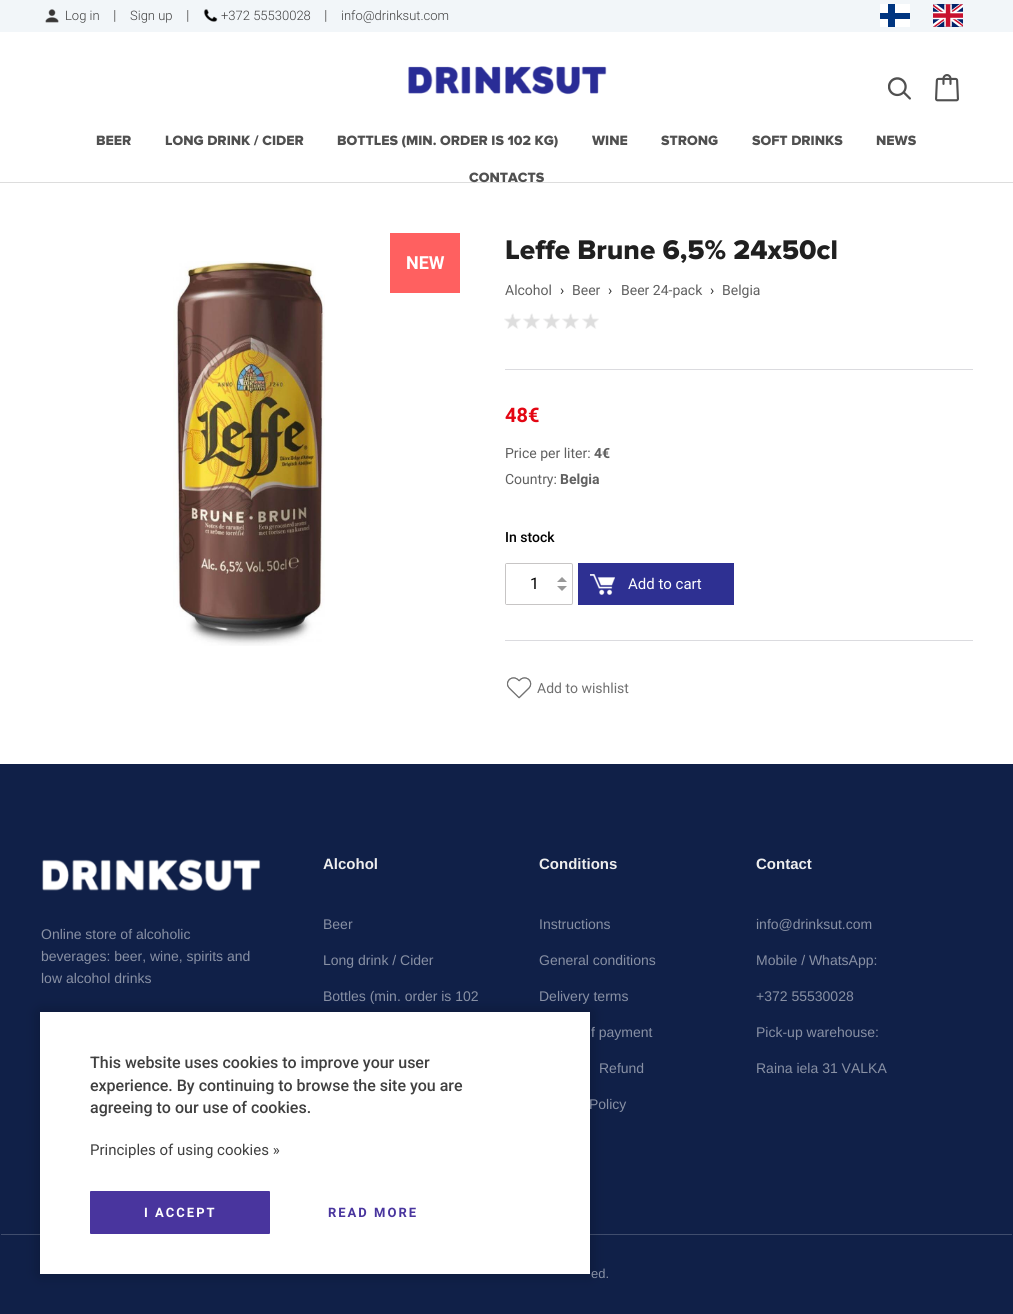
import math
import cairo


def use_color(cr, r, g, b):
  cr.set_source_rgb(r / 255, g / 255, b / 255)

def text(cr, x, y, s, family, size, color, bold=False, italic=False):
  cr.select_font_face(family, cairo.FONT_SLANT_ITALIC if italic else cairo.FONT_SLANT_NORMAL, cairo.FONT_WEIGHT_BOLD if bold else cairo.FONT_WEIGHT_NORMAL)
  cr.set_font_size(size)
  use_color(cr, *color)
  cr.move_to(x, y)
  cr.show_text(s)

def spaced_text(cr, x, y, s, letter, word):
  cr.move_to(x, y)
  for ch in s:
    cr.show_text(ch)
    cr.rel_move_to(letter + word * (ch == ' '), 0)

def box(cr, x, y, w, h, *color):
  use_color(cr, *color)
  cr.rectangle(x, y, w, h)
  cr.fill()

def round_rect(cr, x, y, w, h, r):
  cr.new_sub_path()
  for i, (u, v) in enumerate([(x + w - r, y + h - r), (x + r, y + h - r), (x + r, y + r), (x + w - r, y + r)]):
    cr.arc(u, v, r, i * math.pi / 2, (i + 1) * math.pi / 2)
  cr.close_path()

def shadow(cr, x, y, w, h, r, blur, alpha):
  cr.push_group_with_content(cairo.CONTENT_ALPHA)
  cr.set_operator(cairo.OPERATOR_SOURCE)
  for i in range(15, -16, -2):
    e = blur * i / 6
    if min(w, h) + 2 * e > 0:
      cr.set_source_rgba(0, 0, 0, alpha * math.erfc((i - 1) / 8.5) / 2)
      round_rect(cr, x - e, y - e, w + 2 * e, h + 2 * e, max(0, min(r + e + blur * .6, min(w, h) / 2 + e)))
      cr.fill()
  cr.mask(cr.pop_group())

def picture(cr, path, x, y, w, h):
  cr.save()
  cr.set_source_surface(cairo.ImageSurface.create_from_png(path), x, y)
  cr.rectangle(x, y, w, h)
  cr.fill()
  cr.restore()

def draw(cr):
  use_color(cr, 255, 255, 255)
  cr.paint()
  box(cr, 0, 182, 1013, 1, 221, 221, 221)
  box(cr, 0, 0, 1013, 32, 242, 246, 249)
  picture(cr, "img_01.png", 45, 9, 14, 14)
  picture(cr, "img_02.png", 203, 9, 15, 13)
  box(cr, 880, 4, 30, 23, 255, 255, 255)
  box(cr, 880, 13, 30, 6, 0, 53, 128)
  box(cr, 888, 4, 7, 23, 0, 53, 128)
  picture(cr, "img_03.png", 933, 4, 30, 23)
  picture(cr, "img_04.png", 408, 66, 199, 29)
  picture(cr, "img_05.png", 888, 77, 23, 23)
  picture(cr, "img_06.png", 935, 74, 24, 28)
  picture(cr, "img_07.png", 173, 261, 152, 385)
  box(cr, 390, 233, 70, 60, 255, 96, 96)
  picture(cr, "img_08.png", 504, 313, 17, 16)
  picture(cr, "img_08.png", 523, 313, 17, 16)
  picture(cr, "img_08.png", 543, 313, 17, 16)
  picture(cr, "img_08.png", 562, 313, 17, 16)
  picture(cr, "img_08.png", 582, 313, 17, 16)
  box(cr, 505, 369, 468, 1, 219, 219, 223)
  round_rect(cr, 505.5, 563.5, 67, 41, 1.5)
  use_color(cr, 199, 197, 197)
  cr.set_line_width(1)
  cr.stroke()
  box(cr, 506, 564, 1, 40, 255, 255, 255)
  use_color(cr, 153, 153, 153)
  cr.new_path()
  cr.move_to(557, 586)
  cr.line_to(567, 586)
  cr.line_to(562, 591)
  cr.close_path()
  cr.move_to(567, 582)
  cr.line_to(557, 582)
  cr.line_to(562, 577)
  cr.close_path()
  cr.fill()
  box(cr, 578, 563, 156, 42, 46, 48, 146)
  picture(cr, "img_09.png", 590, 574, 25, 21)
  box(cr, 505, 640, 468, 1, 219, 219, 223)
  picture(cr, "img_10.png", 506, 677, 26, 22)
  box(cr, 0, 764, 1013, 550, 16, 32, 72)
  picture(cr, "img_11.png", 42, 859, 219, 32)
  box(cr, 1, 1234, 1011, 1, 64, 77, 109)
  use_color(cr, 0, 0, 0)
  shadow(cr, 40, 1012, 550, 262, 0, 7.5, 0.25)
  box(cr, 40, 1012, 550, 262, 255, 255, 255)
  use_color(cr, 73, 53, 158)
  round_rect(cr, 90, 1191, 180, 43, 1)
  cr.fill()
  text(cr, 65, 20, "Log in", "Roboto Light", 13, (64, 64, 64))
  text(cr, 113, 20, "|", "Roboto", 14, (112, 112, 112))
  text(cr, 130, 20, "Sign up", "Roboto Light", 13, (64, 64, 64))
  text(cr, 186, 20, "|", "Roboto", 14, (112, 112, 112))
  text(cr, 221, 20, "+372 55530028", "Roboto Light", 13, (64, 64, 64))
  text(cr, 324, 20, "|", "Roboto", 14, (112, 112, 112))
  text(cr, 341, 20, "info@drinksut.com", "Roboto Light", 13, (64, 64, 64))
  text(cr, 96, 145, "BEER", "Proxima Nova ExtraBold", 14, (80, 80, 80))
  text(cr, 165, 145, "LONG DRINK / CIDER", "Proxima Nova ExtraBold", 14, (80, 80, 80))
  text(cr, 337, 145, "BOTTLES (MIN. ORDER IS 102 KG)", "Proxima Nova ExtraBold", 14, (80, 80, 80))
  text(cr, 592, 145, "WINE", "Proxima Nova ExtraBold", 14, (80, 80, 80))
  text(cr, 661, 145, "STRONG", "Proxima Nova ExtraBold", 14, (80, 80, 80))
  text(cr, 752, 145, "SOFT DRINKS", "Proxima Nova ExtraBold", 14, (80, 80, 80))
  text(cr, 876, 145, "NEWS", "Proxima Nova ExtraBold", 14, (80, 80, 80))
  text(cr, 469, 182, "CONTACTS", "Proxima Nova ExtraBold", 14, (80, 80, 80))
  text(cr, 406, 269, "NEW", "Roboto", 18, (255, 255, 255), bold=True)
  text(cr, 505, 259, "Leffe Brune 6,5% 24x50cl", "Proxima Nova ExtraBold", 28, (32, 32, 32))
  text(cr, 505, 295, "Alcohol", "Roboto", 14, (96, 96, 96))
  text(cr, 560, 295, "›", "Roboto", 14, (48, 48, 48))
  text(cr, 572, 295, "Beer", "Roboto", 14, (96, 96, 96))
  text(cr, 608, 295, "›", "Roboto", 14, (48, 48, 48))
  text(cr, 621, 295, "Beer 24-pack", "Roboto", 14, (96, 96, 96))
  text(cr, 710, 295, "›", "Roboto", 14, (48, 48, 48))
  text(cr, 722, 295, "Belgia", "Roboto", 14, (96, 96, 96))
  text(cr, 505, 422, "48€", "Roboto", 20, (227, 6, 19), bold=True)
  text(cr, 505, 458, "Price per liter:", "Roboto", 14, (96, 96, 96))
  text(cr, 594, 458, "4€", "Roboto", 14, (96, 96, 96), bold=True)
  text(cr, 505, 484, "Country:", "Roboto", 14, (96, 96, 96))
  text(cr, 560, 484, "Belgia", "Roboto", 14, (96, 96, 96), bold=True)
  text(cr, 505, 542, "In stock", "Roboto Medium", 14, (0, 0, 0))
  text(cr, 530, 589, "1", "Roboto", 16, (0, 0, 0))
  text(cr, 628, 589, "Add to cart", "Roboto", 15, (255, 255, 255))
  text(cr, 537, 693, "Add to wishlist", "Roboto", 14, (112, 112, 112))
  text(cr, 41, 939, "Online store of alcoholic", "Liberation Sans", 14, (136, 144, 164))
  text(cr, 41, 961, "beverages: beer, wine, spirits and", "Liberation Sans", 14, (136, 144, 164))
  text(cr, 41, 983, "low alcohol drinks", "Liberation Sans", 14, (136, 144, 164))
  text(cr, 323, 869, "Alcohol", "Liberation Sans", 15, (238, 238, 238), bold=True)
  text(cr, 323, 929, "Beer", "Liberation Sans", 14, (136, 144, 164))
  text(cr, 323, 965, "Long drink / Cider", "Liberation Sans", 14, (136, 144, 164))
  text(cr, 323, 1001, "Bottles (min. order is 102", "Liberation Sans", 14, (136, 144, 164))
  text(cr, 539, 869, "Conditions", "Liberation Sans", 15, (238, 238, 238), bold=True)
  text(cr, 539, 929, "Instructions", "Liberation Sans", 14, (136, 144, 164))
  text(cr, 539, 965, "General conditions", "Liberation Sans", 14, (136, 144, 164))
  text(cr, 539, 1001, "Delivery terms", "Liberation Sans", 14, (136, 144, 164))
  text(cr, 591, 1037, "f payment", "Liberation Sans", 14, (136, 144, 164))
  text(cr, 599, 1073, "Refund", "Liberation Sans", 14, (136, 144, 164))
  text(cr, 589, 1109, "Policy", "Liberation Sans", 14, (136, 144, 164))
  text(cr, 756, 869, "Contact", "Liberation Sans", 15, (238, 238, 238), bold=True)
  text(cr, 756, 929, "info@drinksut.com", "Liberation Sans", 14, (136, 144, 164))
  text(cr, 756, 965, "Mobile / WhatsApp:", "Liberation Sans", 14, (136, 144, 164))
  text(cr, 756, 1001, "+372 55530028", "Liberation Sans", 14, (136, 144, 164))
  text(cr, 756, 1037, "Pick-up warehouse:", "Liberation Sans", 14, (136, 144, 164))
  text(cr, 756, 1073, "Raina iela 31 VALKA", "Liberation Sans", 14, (136, 144, 164))
  text(cr, 591, 1278, "ed.", "Liberation Sans", 13, (136, 144, 164))
  text(cr, 90, 1068, "This website uses cookies to improve your user", "Roboto Medium", 16, (64, 64, 64))
  text(cr, 90, 1091, "experience. By continuing to browse the site you are", "Roboto Medium", 16, (64, 64, 64))
  text(cr, 90, 1113, "agreeing to our use of cookies.", "Roboto Medium", 16, (64, 64, 64))
  text(cr, 90, 1155, "Principles of using cookies »", "Roboto", 15, (64, 64, 64))
  cr.select_font_face("Roboto", cairo.FONT_SLANT_NORMAL, cairo.FONT_WEIGHT_BOLD)
  cr.set_font_size(13)
  use_color(cr, 255, 255, 255)
  spaced_text(cr, 144, 1217, "I ACCEPT", 2, 0)
  use_color(cr, 73, 53, 158)
  spaced_text(cr, 328, 1217, "READ MORE", 2, 0)


surface = cairo.ImageSurface(cairo.FORMAT_RGB24, 1013, 1314)
cr = cairo.Context(surface)
options = cairo.FontOptions()
options.set_hint_metrics(cairo.HINT_METRICS_OFF)
options.set_hint_style(cairo.HINT_STYLE_NONE)
cr.set_font_options(options)
cr.set_miter_limit(4)
draw(cr)
surface.write_to_png("out.png")
